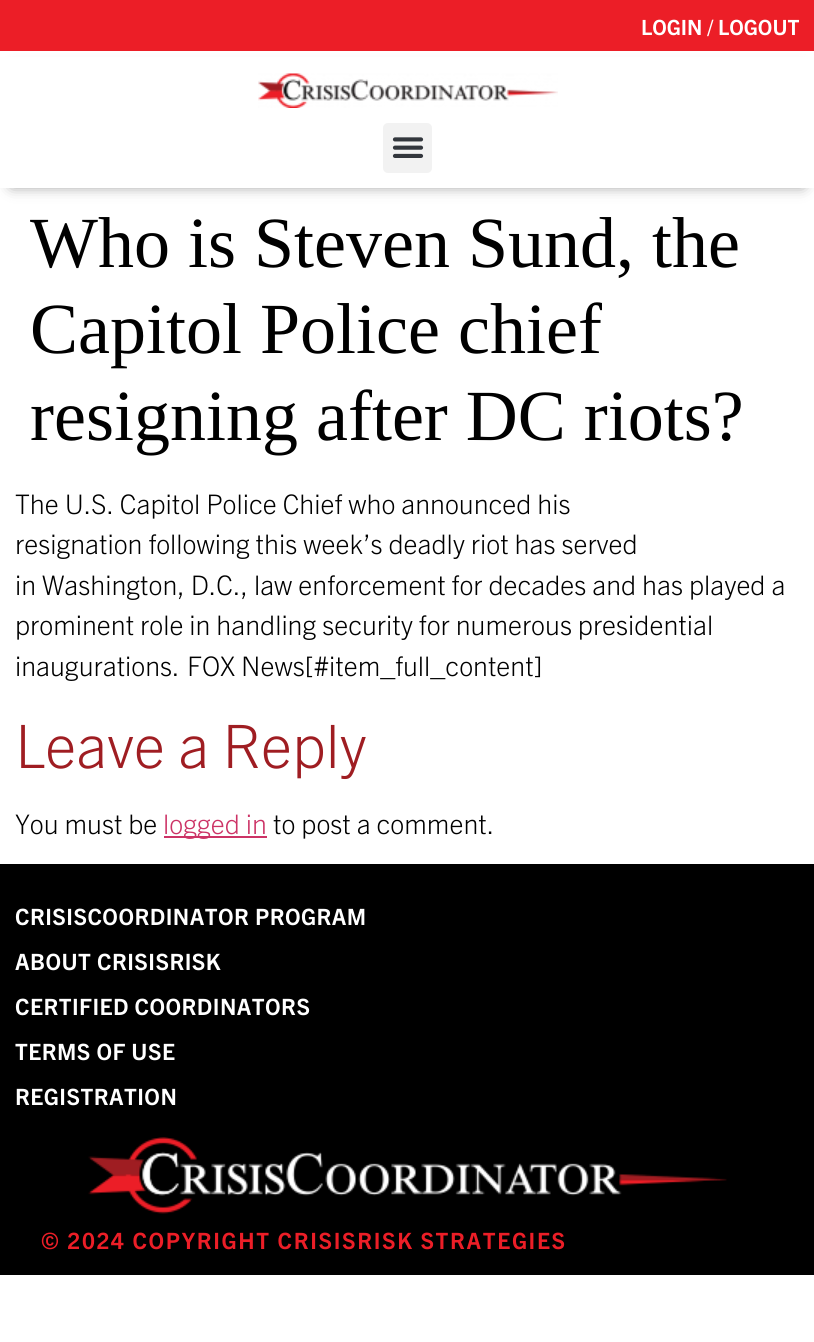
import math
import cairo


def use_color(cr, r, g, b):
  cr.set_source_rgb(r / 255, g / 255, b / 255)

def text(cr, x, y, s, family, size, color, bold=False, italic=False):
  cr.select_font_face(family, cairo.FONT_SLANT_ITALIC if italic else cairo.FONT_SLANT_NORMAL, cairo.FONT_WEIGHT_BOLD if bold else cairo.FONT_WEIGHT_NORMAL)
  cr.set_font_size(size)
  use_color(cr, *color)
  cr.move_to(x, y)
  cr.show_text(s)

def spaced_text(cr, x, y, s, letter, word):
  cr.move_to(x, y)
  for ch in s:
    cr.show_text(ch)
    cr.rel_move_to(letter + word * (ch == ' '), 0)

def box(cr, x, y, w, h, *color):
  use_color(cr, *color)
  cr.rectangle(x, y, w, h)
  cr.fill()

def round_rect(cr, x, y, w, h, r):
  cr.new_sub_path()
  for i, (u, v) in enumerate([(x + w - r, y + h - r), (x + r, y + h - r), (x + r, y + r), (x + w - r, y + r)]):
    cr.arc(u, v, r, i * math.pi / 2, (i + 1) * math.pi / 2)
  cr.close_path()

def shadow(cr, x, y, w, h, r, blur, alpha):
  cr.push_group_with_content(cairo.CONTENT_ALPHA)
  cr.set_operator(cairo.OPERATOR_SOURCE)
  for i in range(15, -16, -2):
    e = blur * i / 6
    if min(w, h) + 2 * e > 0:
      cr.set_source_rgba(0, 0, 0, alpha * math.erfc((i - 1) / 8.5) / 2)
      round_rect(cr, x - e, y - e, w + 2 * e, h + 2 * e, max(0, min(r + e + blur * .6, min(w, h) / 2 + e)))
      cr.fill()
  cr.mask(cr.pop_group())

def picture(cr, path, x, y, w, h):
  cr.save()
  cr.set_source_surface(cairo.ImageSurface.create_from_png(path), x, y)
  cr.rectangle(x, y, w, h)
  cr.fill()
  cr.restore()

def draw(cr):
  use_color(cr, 255, 255, 255)
  cr.paint()
  box(cr, 0, 0, 814, 51, 236, 30, 39)
  use_color(cr, 0, 0, 0)
  shadow(cr, 12, 72, 791, 113, 0, 7.5, 0.5)
  box(cr, 0, 57, 814, 131, 255, 255, 255)
  picture(cr, "img_01.png", 258, 73, 300, 35)
  use_color(cr, 242, 242, 242)
  round_rect(cr, 383, 123, 49, 50, 5)
  cr.fill()
  picture(cr, "img_02.png", 392, 137, 32, 21)
  box(cr, 164, 836, 103, 2, 204, 51, 102)
  box(cr, 0, 864, 814, 411, 0, 0, 0)
  picture(cr, "img_03.png", 88, 1137, 639, 77)
  text(cr, 641, 35, "LOGIN / LOGOUT", "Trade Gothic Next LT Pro", 21, (255, 255, 255), bold=True)
  text(cr, 30, 267, "Who is Steven Sund, the", "Liberation Serif", 72, (0, 0, 0))
  text(cr, 30, 353, "Capitol Police chief", "Liberation Serif", 72, (0, 0, 0))
  text(cr, 30, 440, "resigning after DC riots?", "Liberation Serif", 72, (0, 0, 0))
  text(cr, 15, 514, "The U.S. Capitol Police Chief who announced his", "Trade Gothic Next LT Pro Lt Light", 27, (0, 0, 0))
  text(cr, 15, 554, "resignation following this week’s deadly riot has served", "Trade Gothic Next LT Pro Lt Light", 27, (0, 0, 0))
  text(cr, 15, 595, "in Washington, D.C., law enforcement for decades and has played a", "Trade Gothic Next LT Pro Lt Light", 27, (0, 0, 0))
  text(cr, 15, 635, "prominent role in handling security for numerous presidential", "Trade Gothic Next LT Pro Lt Light", 27, (0, 0, 0))
  text(cr, 15, 676, "inaugurations.", "Trade Gothic Next LT Pro Lt Light", 27, (0, 0, 0))
  text(cr, 187, 676, "FOX News[#item_full_content]", "Trade Gothic Next LT Pro Lt Light", 27, (0, 0, 0))
  text(cr, 15, 768, "Leave a Reply", "Trade Gothic Next LT Pro Lt Light", 60, (159, 29, 34))
  text(cr, 15, 834, "You must be", "Trade Gothic Next LT Pro Lt Light", 27, (0, 0, 0))
  text(cr, 163, 834, "logged in", "Trade Gothic Next LT Pro Lt Light", 27, (204, 51, 102))
  text(cr, 273, 834, "to post a comment.", "Trade Gothic Next LT Pro Lt Light", 27, (0, 0, 0))
  cr.select_font_face("Trade Gothic Next LT Pro", cairo.FONT_SLANT_NORMAL, cairo.FONT_WEIGHT_BOLD)
  cr.set_font_size(22.5)
  use_color(cr, 255, 255, 255)
  spaced_text(cr, 15, 925, "CRISISCOORDINATOR PROGRAM", 0.45, 0)
  spaced_text(cr, 15, 970, "ABOUT CRISISRISK", 0.45, 0)
  spaced_text(cr, 15, 1015, "CERTIFIED COORDINATORS", 0.45, 0)
  spaced_text(cr, 15, 1060, "TERMS OF USE", 0.45, 0)
  spaced_text(cr, 15, 1105, "REGISTRATION", 0.45, 0)
  use_color(cr, 236, 30, 39)
  spaced_text(cr, 41, 1249, "© 2024 COPYRIGHT CRISISRISK STRATEGIES", 1.65, 0)


surface = cairo.ImageSurface(cairo.FORMAT_RGB24, 814, 1342)
cr = cairo.Context(surface)
options = cairo.FontOptions()
options.set_hint_metrics(cairo.HINT_METRICS_OFF)
options.set_hint_style(cairo.HINT_STYLE_NONE)
cr.set_font_options(options)
cr.set_miter_limit(4)
draw(cr)
surface.write_to_png("out.png")
